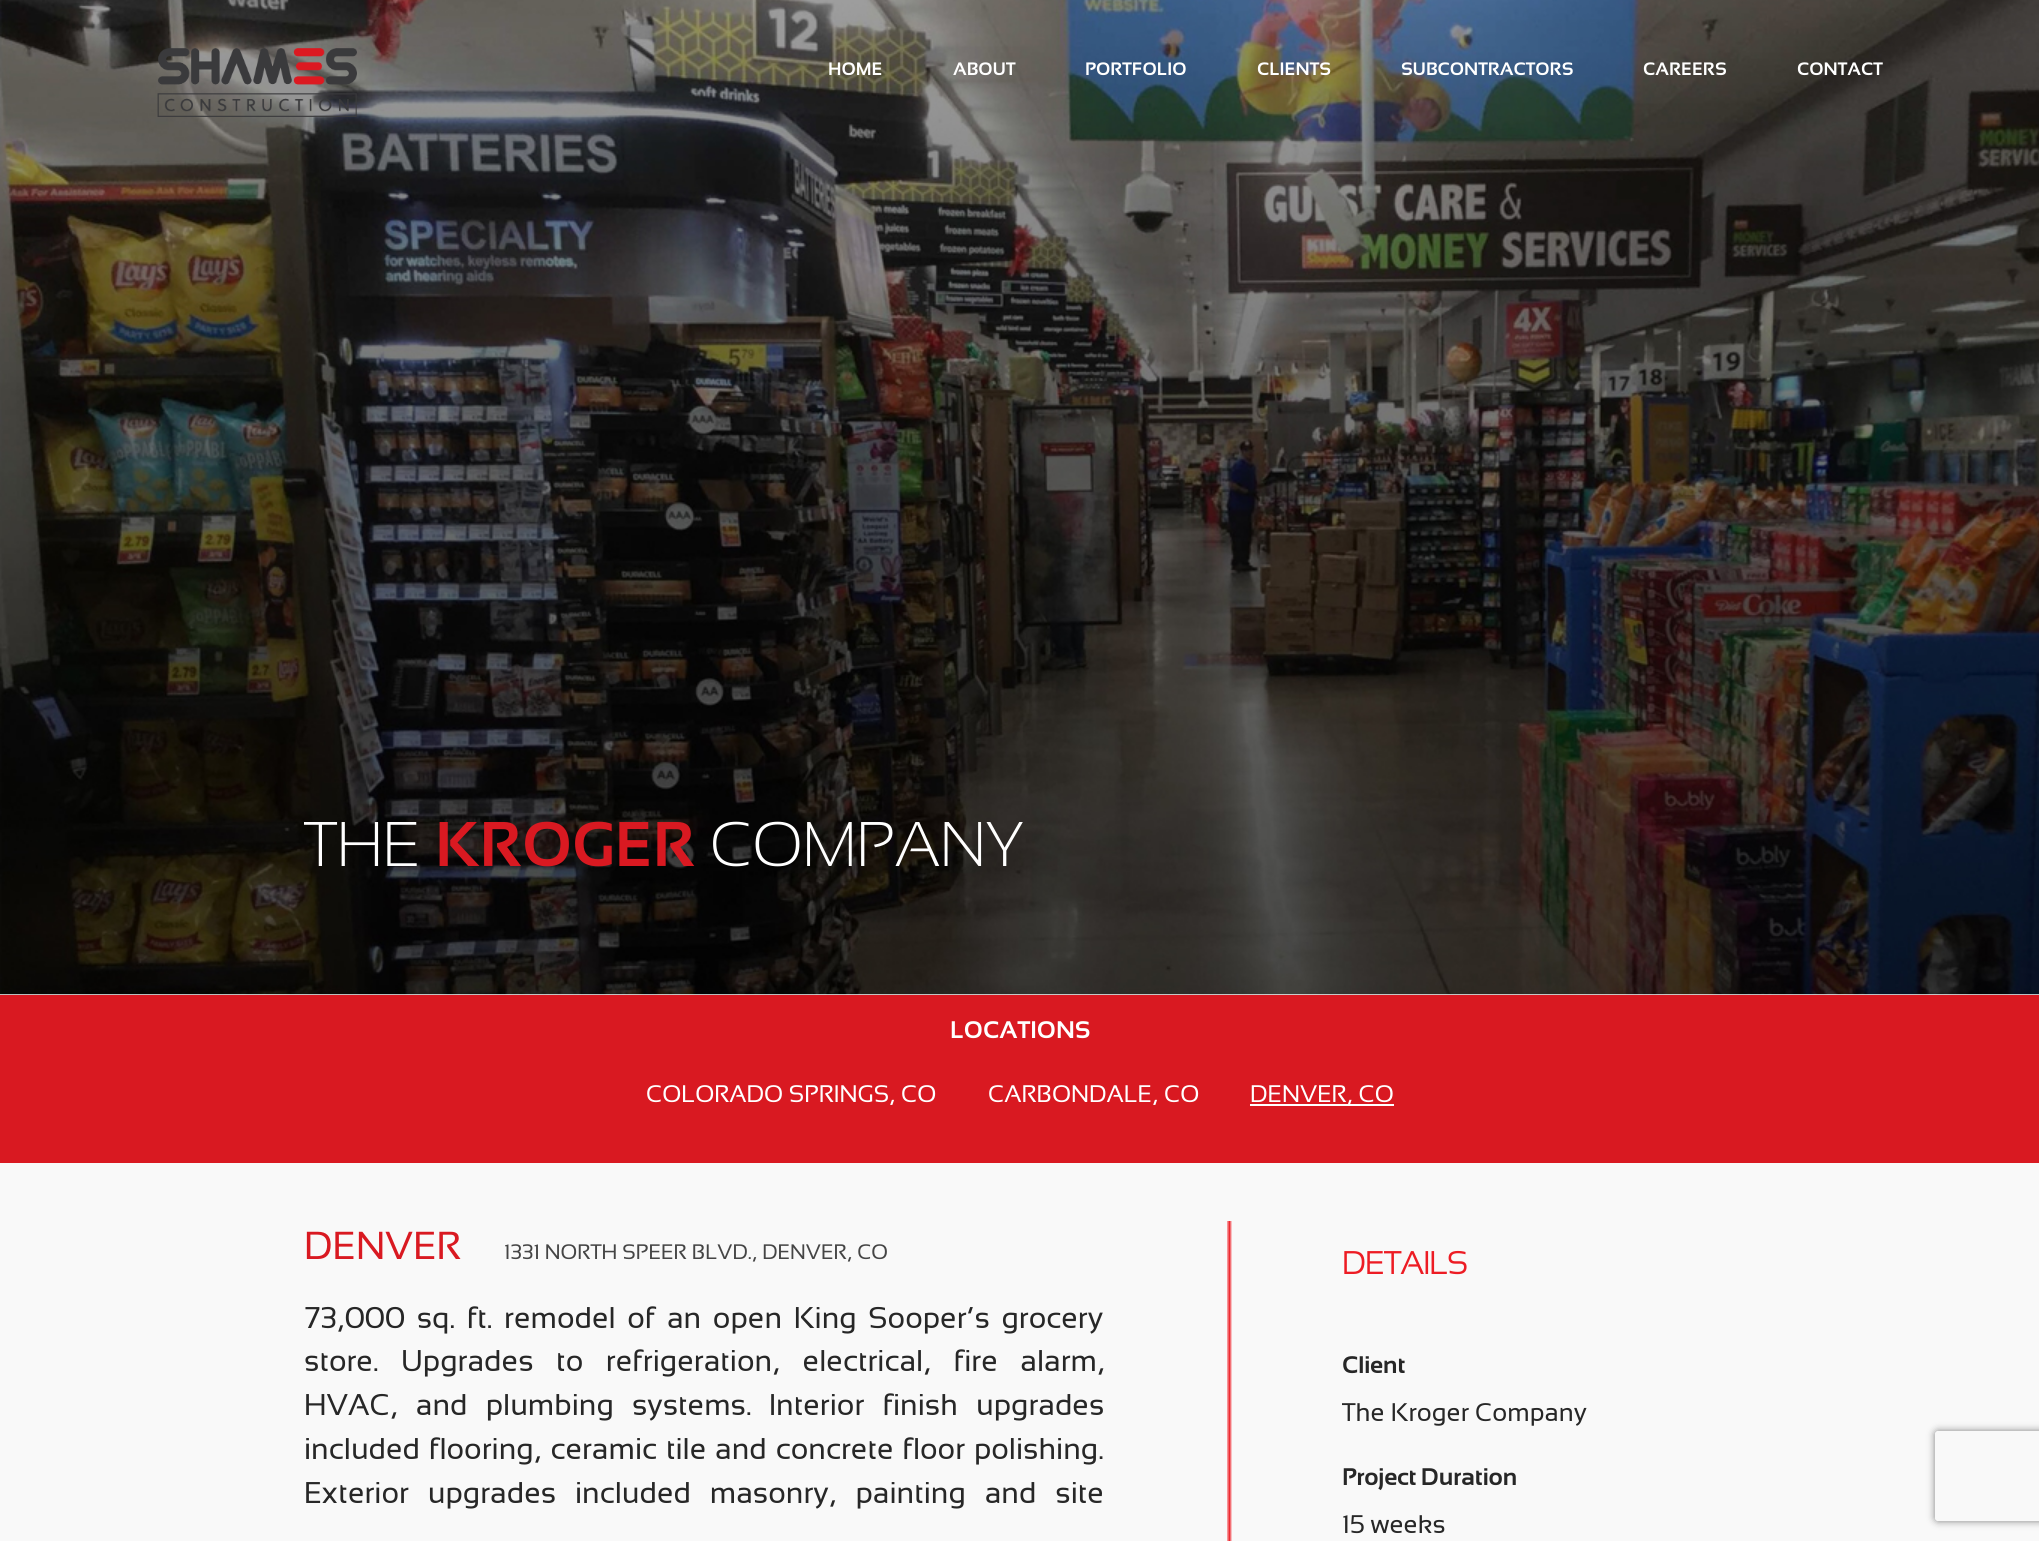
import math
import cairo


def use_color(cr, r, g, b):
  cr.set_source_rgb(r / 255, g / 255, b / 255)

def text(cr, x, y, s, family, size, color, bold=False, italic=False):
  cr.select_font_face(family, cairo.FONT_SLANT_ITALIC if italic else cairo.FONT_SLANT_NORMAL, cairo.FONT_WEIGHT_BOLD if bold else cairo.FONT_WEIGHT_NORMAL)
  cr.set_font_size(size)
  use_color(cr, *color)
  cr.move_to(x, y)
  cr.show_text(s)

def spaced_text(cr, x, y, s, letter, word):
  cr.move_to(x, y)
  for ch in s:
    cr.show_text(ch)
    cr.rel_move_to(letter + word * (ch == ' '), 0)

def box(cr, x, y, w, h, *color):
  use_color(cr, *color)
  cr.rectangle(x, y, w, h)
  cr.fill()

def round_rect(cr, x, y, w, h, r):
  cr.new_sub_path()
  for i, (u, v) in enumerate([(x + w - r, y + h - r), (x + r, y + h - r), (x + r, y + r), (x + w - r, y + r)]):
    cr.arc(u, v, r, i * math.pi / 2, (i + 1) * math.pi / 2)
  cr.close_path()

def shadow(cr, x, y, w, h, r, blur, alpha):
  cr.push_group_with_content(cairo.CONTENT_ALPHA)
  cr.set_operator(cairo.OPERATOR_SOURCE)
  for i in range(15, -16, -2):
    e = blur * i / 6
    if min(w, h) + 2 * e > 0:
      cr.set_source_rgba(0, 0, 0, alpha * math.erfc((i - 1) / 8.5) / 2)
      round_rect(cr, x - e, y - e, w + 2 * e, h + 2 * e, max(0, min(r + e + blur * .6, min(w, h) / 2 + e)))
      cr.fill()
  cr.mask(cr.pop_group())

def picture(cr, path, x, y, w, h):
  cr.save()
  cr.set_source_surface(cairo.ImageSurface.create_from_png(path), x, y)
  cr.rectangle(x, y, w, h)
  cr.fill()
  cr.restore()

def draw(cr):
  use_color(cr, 249, 249, 249)
  cr.paint()
  picture(cr, "img_02.png", 0, 0, 2039, 995)
  picture(cr, "img_01.png", 157, 48, 200, 69)
  box(cr, 0, 995, 2039, 168, 217, 25, 33)
  box(cr, 1250, 1104, 144, 2, 255, 255, 255)
  picture(cr, "img_03.png", 1227, 1221, 5, 320)
  cr.save()
  cr.set_fill_rule(cairo.FILL_RULE_EVEN_ODD)
  cr.new_path()
  cr.move_to(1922, 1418)
  cr.line_to(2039, 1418)
  cr.line_to(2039, 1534)
  cr.line_to(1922, 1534)
  cr.close_path()
  cr.move_to(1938, 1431)
  cr.line_to(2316, 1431)
  cr.curve_to(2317.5, 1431, 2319, 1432.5, 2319, 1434)
  cr.line_to(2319, 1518)
  cr.curve_to(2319, 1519.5, 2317.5, 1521, 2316, 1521)
  cr.line_to(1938, 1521)
  cr.curve_to(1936.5, 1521, 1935, 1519.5, 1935, 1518)
  cr.line_to(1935, 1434)
  cr.curve_to(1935, 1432.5, 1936.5, 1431, 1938, 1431)
  cr.close_path()
  cr.clip()
  use_color(cr, 128, 128, 128)
  shadow(cr, 1935, 1431, 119, 90, 3, 4, 1)
  cr.restore()
  text(cr, 828, 75, "HOME", "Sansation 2", 18, (255, 255, 255), bold=True)
  text(cr, 953, 75, "ABOUT", "Sansation 2", 18, (255, 255, 255), bold=True)
  text(cr, 1085, 75, "PORTFOLIO", "Sansation 2", 18, (255, 255, 255), bold=True)
  text(cr, 1257, 75, "CLIENTS", "Sansation 2", 18, (255, 255, 255), bold=True)
  text(cr, 1401, 75, "SUBCONTRACTORS", "Sansation 2", 18, (255, 255, 255), bold=True)
  text(cr, 1643, 75, "CAREERS", "Sansation 2", 18, (255, 255, 255), bold=True)
  text(cr, 1797, 75, "CONTACT", "Sansation 2", 18, (255, 255, 255), bold=True)
  text(cr, 304, 866, "THE", "Sansation Light", 63, (255, 255, 255))
  text(cr, 435, 866, "KROGER", "Sansation 2", 63, (217, 25, 33), bold=True)
  text(cr, 710, 866, "COMPANY", "Sansation Light", 63, (255, 255, 255))
  text(cr, 950, 1038, "LOCATIONS", "Sansation 2", 24, (255, 255, 255), bold=True)
  text(cr, 646, 1102, "COLORADO SPRINGS, CO", "Sansation", 24, (255, 255, 255))
  text(cr, 988, 1102, "CARBONDALE, CO", "Sansation", 24, (255, 255, 255))
  text(cr, 1250, 1102, "DENVER, CO", "Sansation", 24, (255, 255, 255))
  text(cr, 304, 1259, "DENVER", "Sansation", 39, (217, 25, 33))
  text(cr, 504, 1259, "1331 NORTH SPEER BLVD., DENVER, CO", "Sansation", 21, (69, 69, 69))
  cr.set_font_size(30)
  use_color(cr, 39, 39, 39)
  spaced_text(cr, 304, 1328, "73,000 sq. ft. remodel of an open King Sooper’s grocery", 0, 4.5)
  text(cr, 304, 1371, "store.", "Sansation", 30, (39, 39, 39))
  spaced_text(cr, 401, 1371, "Upgrades to refrigeration, electrical, fire alarm,", 0, 15.5)
  spaced_text(cr, 304, 1415, "HVAC, and plumbing systems.", 0, 11)
  spaced_text(cr, 769, 1415, "Interior finish upgrades", 0, 11)
  spaced_text(cr, 304, 1459, "included flooring, ceramic tile and concrete floor polishing.", 0, 1.75)
  spaced_text(cr, 304, 1503, "Exterior upgrades included masonry, painting and site", 0, 11.75)
  text(cr, 1342, 1274, "DETAILS", "Sansation", 31.5, (237, 28, 36), bold=True)
  text(cr, 1342, 1373, "Client", "Sansation 2", 24, (39, 39, 39), bold=True)
  text(cr, 1342, 1421, "The Kroger Company", "Sansation", 25.5, (39, 39, 39))
  text(cr, 1342, 1485, "Project Duration", "Sansation 2", 24, (39, 39, 39), bold=True)
  text(cr, 1342, 1533, "15 weeks", "Sansation", 25.5, (39, 39, 39))


surface = cairo.ImageSurface(cairo.FORMAT_RGB24, 2039, 1541)
cr = cairo.Context(surface)
options = cairo.FontOptions()
options.set_hint_metrics(cairo.HINT_METRICS_OFF)
options.set_hint_style(cairo.HINT_STYLE_NONE)
cr.set_font_options(options)
cr.set_miter_limit(4)
draw(cr)
surface.write_to_png("out.png")
